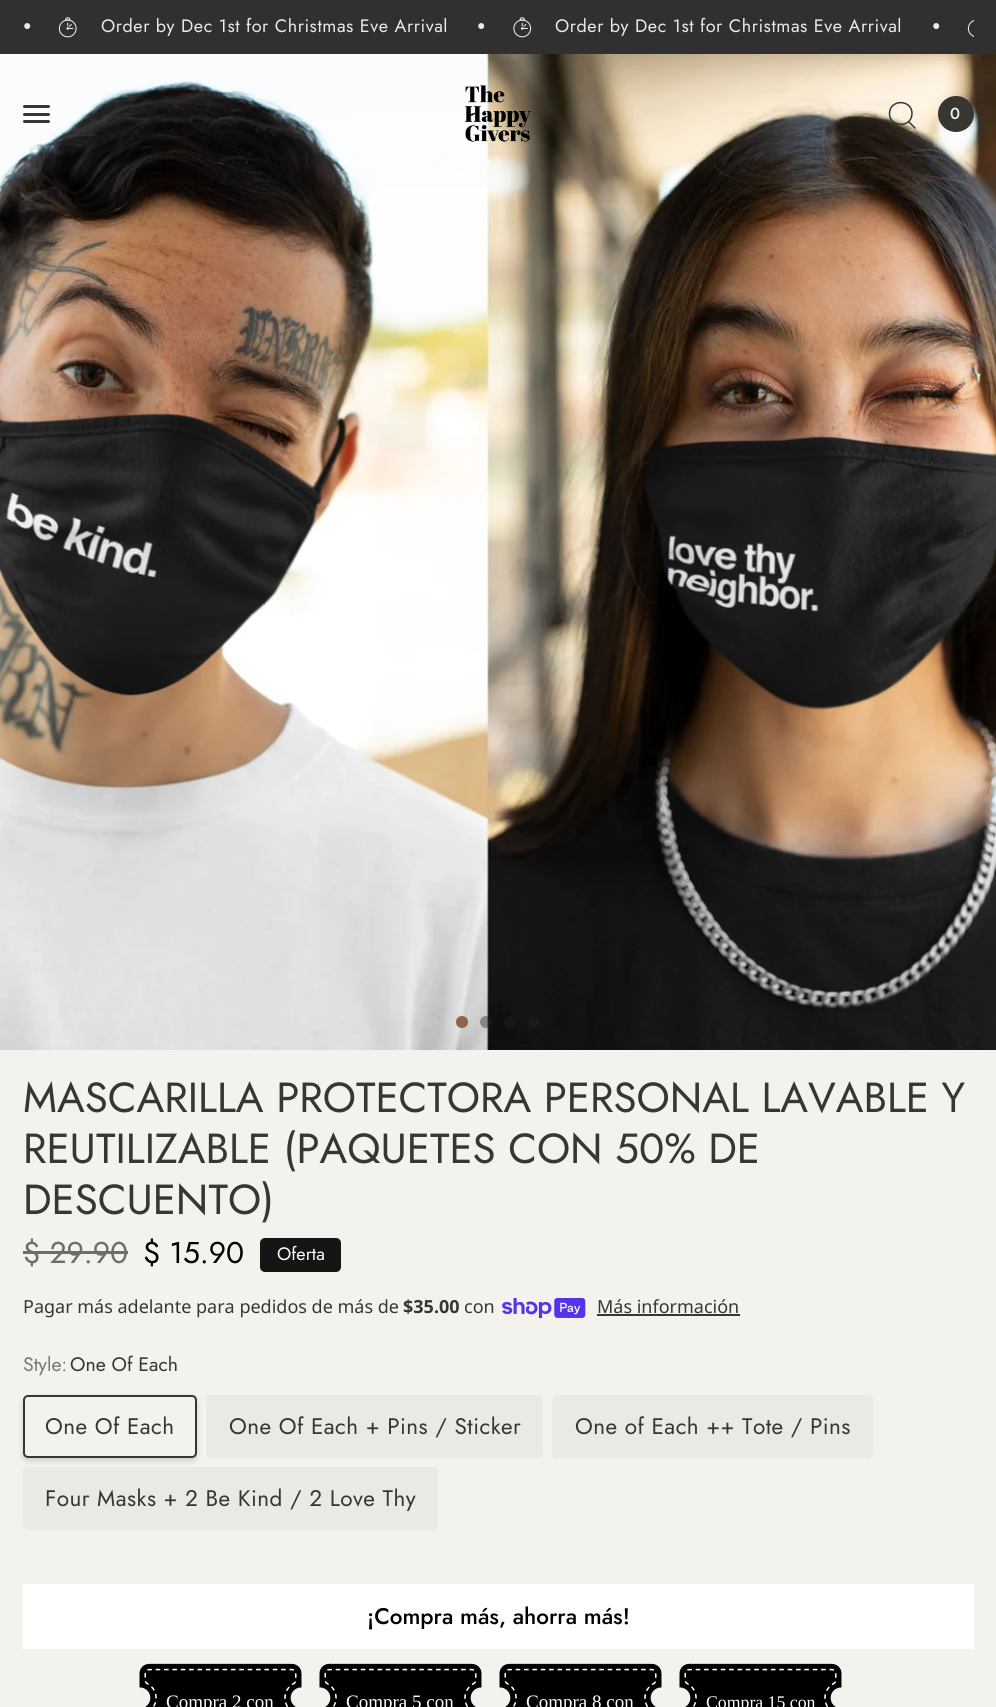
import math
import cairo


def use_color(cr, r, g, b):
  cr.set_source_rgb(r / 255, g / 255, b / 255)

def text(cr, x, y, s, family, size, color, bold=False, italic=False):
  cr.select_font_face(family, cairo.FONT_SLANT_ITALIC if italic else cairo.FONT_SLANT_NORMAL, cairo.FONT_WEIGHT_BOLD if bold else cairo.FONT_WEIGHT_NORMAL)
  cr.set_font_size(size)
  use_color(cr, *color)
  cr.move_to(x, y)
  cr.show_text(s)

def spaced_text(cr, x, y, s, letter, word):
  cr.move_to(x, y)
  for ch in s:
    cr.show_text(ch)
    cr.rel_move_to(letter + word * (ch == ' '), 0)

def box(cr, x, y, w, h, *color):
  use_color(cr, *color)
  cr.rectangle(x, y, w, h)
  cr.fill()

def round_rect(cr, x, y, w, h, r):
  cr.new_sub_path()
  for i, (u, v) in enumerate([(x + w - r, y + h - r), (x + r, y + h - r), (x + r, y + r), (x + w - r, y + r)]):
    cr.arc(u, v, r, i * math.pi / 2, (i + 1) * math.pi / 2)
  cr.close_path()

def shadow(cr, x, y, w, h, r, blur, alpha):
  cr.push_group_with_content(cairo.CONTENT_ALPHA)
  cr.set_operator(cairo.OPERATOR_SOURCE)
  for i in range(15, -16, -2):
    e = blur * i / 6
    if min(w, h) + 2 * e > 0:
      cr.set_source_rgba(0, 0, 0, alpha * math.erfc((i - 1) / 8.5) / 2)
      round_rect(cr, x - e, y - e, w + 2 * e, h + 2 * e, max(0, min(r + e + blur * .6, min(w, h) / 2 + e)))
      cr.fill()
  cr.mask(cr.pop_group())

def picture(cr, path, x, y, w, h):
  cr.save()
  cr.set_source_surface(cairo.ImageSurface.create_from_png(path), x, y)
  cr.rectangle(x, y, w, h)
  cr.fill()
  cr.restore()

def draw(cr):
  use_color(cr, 243, 242, 236)
  cr.paint()
  box(cr, 0, 0, 996, 54, 49, 48, 48)
  picture(cr, "img_01.png", 58, 17, 19, 21)
  picture(cr, "img_02.png", 513, 17, 19, 21)
  picture(cr, "img_03.png", 967, 20, 7, 17)
  picture(cr, "img_05.png", 0, 54, 996, 996)
  use_color(cr, 56, 54, 51)
  round_rect(cr, 23, 105, 27, 3, 1.5)
  cr.fill()
  round_rect(cr, 23, 113, 27, 3, 1.5)
  cr.fill()
  round_rect(cr, 23, 120, 27, 3, 1.5)
  cr.fill()
  picture(cr, "img_04.png", 465, 85, 66, 57)
  cr.new_path()
  cr.move_to(908.5, 121.5)
  cr.line_to(915, 128)
  cr.move_to(912, 113.5)
  cr.curve_to(912, 128, 889.5, 128, 889.5, 113.5)
  cr.curve_to(889.5, 99, 912, 99, 912, 113.5)
  cr.close_path()
  cr.set_line_width(1.5)
  cr.set_line_cap(cairo.LINE_CAP_ROUND)
  cr.set_line_join(cairo.LINE_JOIN_ROUND)
  cr.stroke()
  cr.arc(956, 114, 18, 0, 2 * math.pi)
  cr.fill()
  use_color(cr, 147, 99, 71)
  cr.arc(462, 1022, 5, 0, 2 * math.pi)
  cr.fill_preserve()
  cr.set_line_width(2)
  cr.set_line_cap(cairo.LINE_CAP_BUTT)
  cr.set_line_join(cairo.LINE_JOIN_MITER)
  cr.stroke()
  cr.set_source_rgba(0.137, 0.137, 0.137, 0.4)
  cr.arc(486, 1022, 6, 0, 2 * math.pi)
  cr.fill()
  use_color(cr, 24, 24, 24)
  cr.arc(510, 1022, 6, 0, 2 * math.pi)
  cr.fill()
  cr.set_source_rgba(0.137, 0.137, 0.137, 0.4)
  cr.arc(534, 1022, 6, 0, 2 * math.pi)
  cr.fill()
  box(cr, 23, 1251, 105, 3, 109, 109, 106)
  use_color(cr, 21, 21, 21)
  round_rect(cr, 260, 1238, 81, 34, 5)
  cr.fill()
  picture(cr, "img_06.png", 502, 1298, 84, 21)
  box(cr, 597, 1314, 143, 2, 56, 54, 51)
  use_color(cr, 234, 233, 227)
  round_rect(cr, 206, 1395, 337, 63, 5)
  cr.fill()
  round_rect(cr, 23, 1467, 415, 63, 5)
  cr.fill()
  use_color(cr, 0, 0, 0)
  shadow(cr, 23, 1398, 174, 63, 5, 3, 0.15)
  use_color(cr, 243, 242, 236)
  round_rect(cr, 24, 1396, 172, 61, 4)
  cr.fill_preserve()
  use_color(cr, 56, 54, 51)
  cr.stroke()
  use_color(cr, 234, 233, 227)
  round_rect(cr, 552, 1395, 321, 63, 5)
  cr.fill()
  box(cr, 23, 1584, 951, 65, 255, 255, 255)
  picture(cr, "img_07.png", 139, 1663, 163, 44)
  picture(cr, "img_07.png", 319, 1663, 163, 44)
  picture(cr, "img_07.png", 499, 1663, 163, 44)
  picture(cr, "img_07.png", 679, 1663, 163, 44)
  cr.select_font_face("Liberation Sans")
  cr.set_font_size(14)
  use_color(cr, 237, 234, 229)
  spaced_text(cr, 23, 30, "●", 0.55, 0)
  cr.select_font_face("Jost")
  cr.set_font_size(18)
  spaced_text(cr, 101, 32, "Order by Dec 1st for Christmas Eve Arrival", 0.55, 0)
  cr.select_font_face("Liberation Sans")
  cr.set_font_size(14)
  spaced_text(cr, 477, 30, "●", 0.55, 0)
  cr.select_font_face("Jost")
  cr.set_font_size(18)
  spaced_text(cr, 555, 32, "Order by Dec 1st for Christmas Eve Arrival", 0.55, 0)
  cr.select_font_face("Liberation Sans")
  cr.set_font_size(14)
  spaced_text(cr, 932, 30, "●", 0.55, 0)
  text(cr, 950, 119, "0", "Jost Medium", 16, (243, 242, 236))
  text(cr, 23, 1112, "MASCARILLA PROTECTORA PERSONAL LAVABLE Y", "Jost", 42, (56, 54, 51))
  text(cr, 23, 1163, "REUTILIZABLE (PAQUETES CON 50% DE", "Jost", 42, (56, 54, 51))
  text(cr, 23, 1214, "DESCUENTO)", "Jost", 42, (56, 54, 51))
  text(cr, 23, 1263, "$ 29.90", "Jost", 30, (109, 109, 106))
  text(cr, 143, 1263, "$ 15.90", "Jost", 30, (0, 0, 0))
  text(cr, 277, 1260, "Oferta", "Jost", 18, (255, 255, 255))
  text(cr, 23, 1313, "Pagar más adelante para pedidos de más de", "Noto Sans", 18, (56, 54, 51))
  text(cr, 403, 1313, "$35.00", "Noto Sans", 18, (56, 54, 51), bold=True)
  text(cr, 464, 1313, "con", "Noto Sans", 18, (56, 54, 51))
  text(cr, 597, 1313, "Más información", "Noto Sans", 18, (56, 54, 51))
  text(cr, 23, 1371, "Style:", "Jost", 19.5, (121, 120, 116))
  text(cr, 70, 1371, "One Of Each", "Jost", 19.5, (56, 54, 51))
  cr.set_font_size(22.5)
  spaced_text(cr, 45, 1434, "One Of Each", 0.45, 0)
  spaced_text(cr, 229, 1434, "One Of Each + Pins / Sticker", 0.45, 0)
  spaced_text(cr, 575, 1434, "One of Each ++ Tote / Pins", 0.45, 0)
  spaced_text(cr, 45, 1506, "Four Masks + 2 Be Kind / 2 Love Thy", 0.45, 0)
  text(cr, 367, 1624, "¡Compra más, ahorra más!", "Jost Medium", 22.5, (0, 0, 0))
  text(cr, 166, 1708, "Compra 2 con", "Liberation Serif", 19, (255, 255, 255))
  text(cr, 346, 1708, "Compra 5 con", "Liberation Serif", 19, (255, 255, 255))
  text(cr, 526, 1708, "Compra 8 con", "Liberation Serif", 19, (255, 255, 255))
  text(cr, 706, 1708, "Compra 15 con", "Liberation Serif", 17.75, (255, 255, 255))


surface = cairo.ImageSurface(cairo.FORMAT_RGB24, 996, 1707)
cr = cairo.Context(surface)
options = cairo.FontOptions()
options.set_hint_metrics(cairo.HINT_METRICS_OFF)
options.set_hint_style(cairo.HINT_STYLE_NONE)
cr.set_font_options(options)
cr.set_miter_limit(4)
draw(cr)
surface.write_to_png("out.png")
